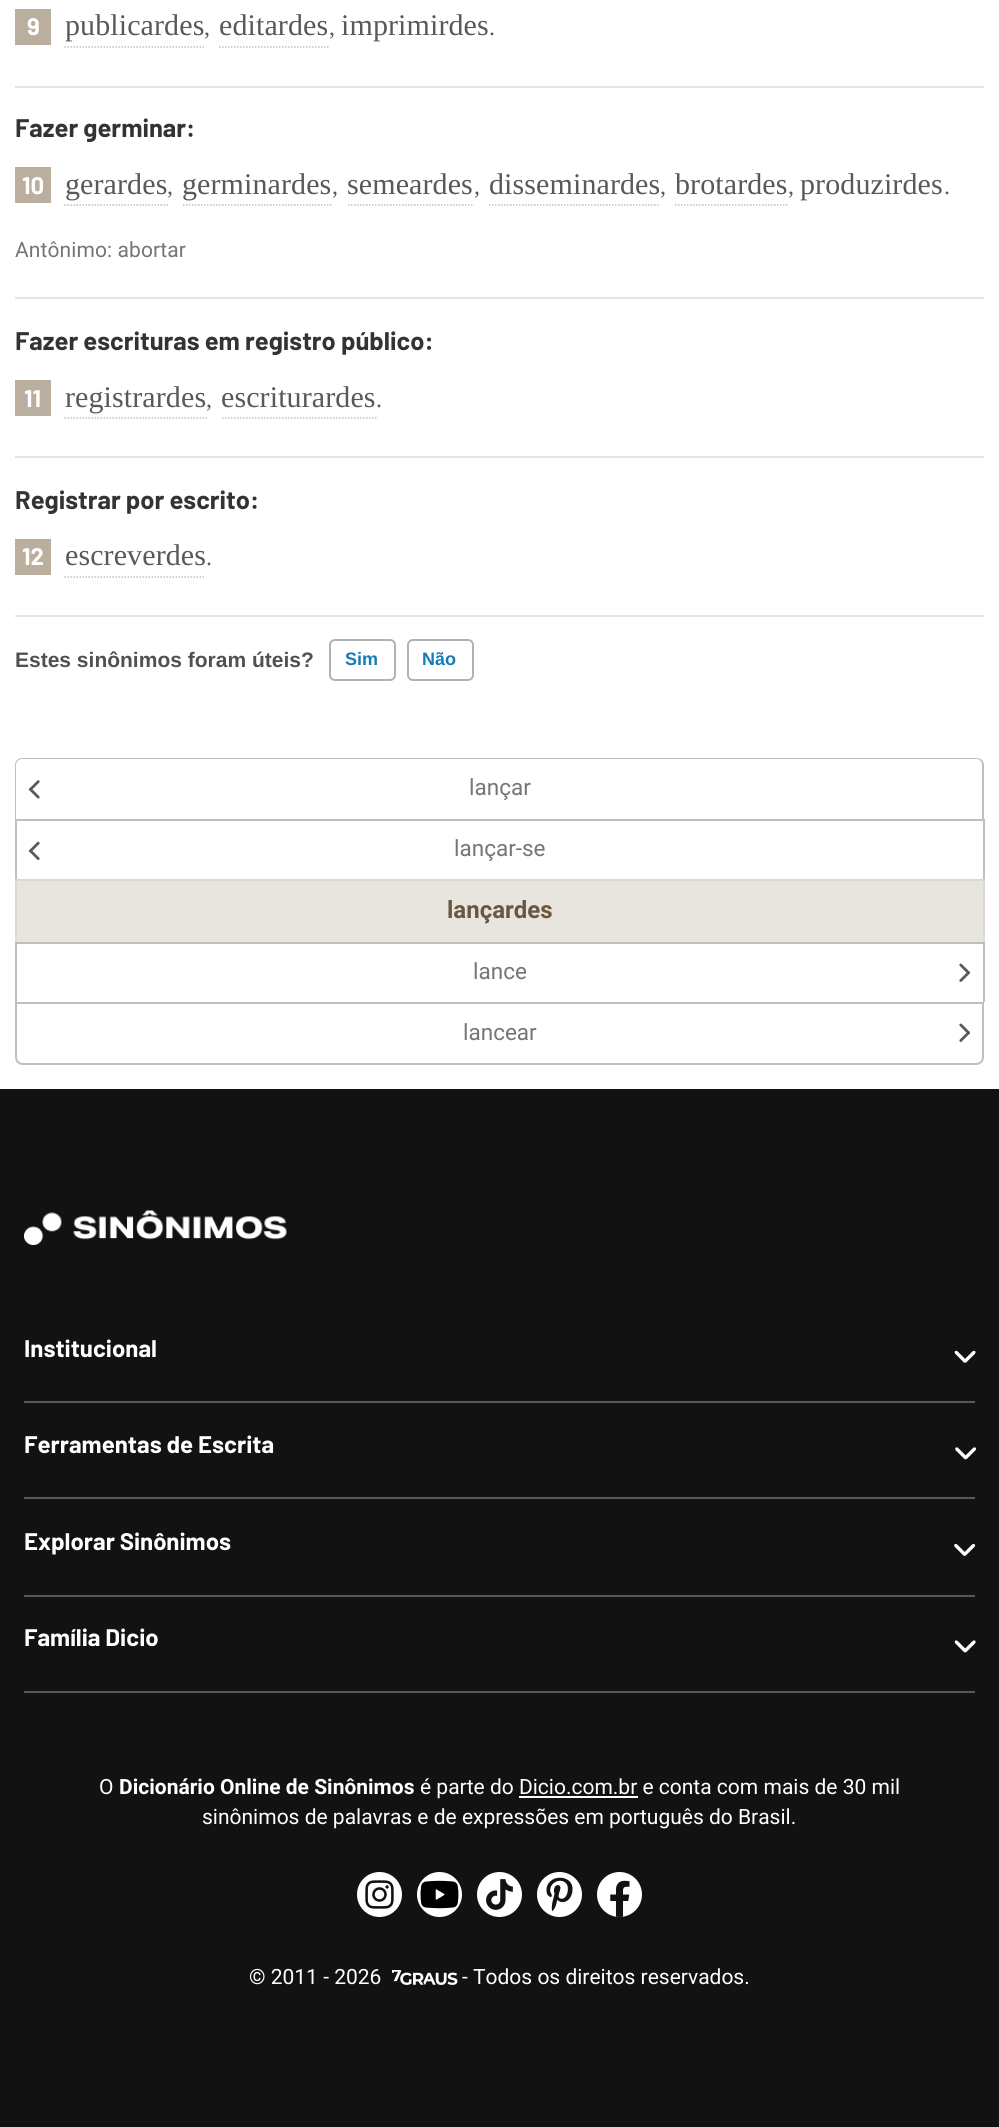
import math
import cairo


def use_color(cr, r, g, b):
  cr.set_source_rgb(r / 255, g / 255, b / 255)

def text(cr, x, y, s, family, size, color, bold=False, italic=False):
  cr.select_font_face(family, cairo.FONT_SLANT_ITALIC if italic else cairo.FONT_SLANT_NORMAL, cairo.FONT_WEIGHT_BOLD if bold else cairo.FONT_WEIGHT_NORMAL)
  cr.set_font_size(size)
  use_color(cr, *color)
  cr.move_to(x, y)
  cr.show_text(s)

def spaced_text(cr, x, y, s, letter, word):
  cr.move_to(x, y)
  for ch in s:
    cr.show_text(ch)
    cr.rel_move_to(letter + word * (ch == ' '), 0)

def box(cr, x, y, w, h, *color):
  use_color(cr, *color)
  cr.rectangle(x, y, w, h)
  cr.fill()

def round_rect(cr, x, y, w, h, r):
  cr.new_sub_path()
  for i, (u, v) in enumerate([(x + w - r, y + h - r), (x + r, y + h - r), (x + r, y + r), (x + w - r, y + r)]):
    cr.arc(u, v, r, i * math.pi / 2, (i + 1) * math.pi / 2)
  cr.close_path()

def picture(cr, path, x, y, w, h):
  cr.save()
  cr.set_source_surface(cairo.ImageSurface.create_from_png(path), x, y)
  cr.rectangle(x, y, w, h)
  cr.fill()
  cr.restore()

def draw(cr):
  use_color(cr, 255, 255, 255)
  cr.paint()
  box(cr, 15, 86, 969, 2, 232, 228, 222)
  box(cr, 15, 9, 36, 36, 186, 175, 158)
  cr.new_path()
  cr.move_to(64.5, 47)
  cr.line_to(204, 47)
  use_color(cr, 191, 191, 191)
  cr.set_line_width(1.5)
  cr.set_dash([1.5, 1.5])
  cr.stroke()
  cr.new_path()
  cr.move_to(219, 47)
  cr.line_to(328.5, 47)
  cr.stroke()
  box(cr, 15, 297, 969, 2, 232, 228, 222)
  box(cr, 15, 167, 36, 36, 186, 175, 158)
  cr.new_path()
  cr.move_to(64.5, 205)
  cr.line_to(168, 205)
  use_color(cr, 191, 191, 191)
  cr.stroke()
  cr.new_path()
  cr.move_to(183, 205)
  cr.line_to(333, 205)
  cr.stroke()
  cr.new_path()
  cr.move_to(348, 205)
  cr.line_to(474, 205)
  cr.stroke()
  cr.new_path()
  cr.move_to(489, 205)
  cr.line_to(660, 205)
  cr.stroke()
  cr.new_path()
  cr.move_to(675, 205)
  cr.line_to(789, 205)
  cr.stroke()
  box(cr, 15, 456, 969, 2, 232, 228, 222)
  box(cr, 15, 380, 36, 36, 186, 175, 158)
  cr.new_path()
  cr.move_to(64.5, 418)
  cr.line_to(207, 418)
  use_color(cr, 191, 191, 191)
  cr.stroke()
  cr.new_path()
  cr.move_to(222, 418)
  cr.line_to(376.5, 418)
  cr.stroke()
  box(cr, 15, 615, 969, 2, 232, 228, 222)
  box(cr, 15, 539, 36, 36, 186, 175, 158)
  cr.new_path()
  cr.move_to(64.5, 577)
  cr.line_to(205.5, 577)
  use_color(cr, 191, 191, 191)
  cr.stroke()
  round_rect(cr, 330, 640, 65, 40, 5)
  use_color(cr, 178, 178, 178)
  cr.set_line_width(2)
  cr.set_dash([])
  cr.stroke()
  round_rect(cr, 408, 640, 65, 40, 5)
  cr.stroke()
  use_color(cr, 191, 191, 191)
  cr.set_fill_rule(cairo.FILL_RULE_EVEN_ODD)
  cr.new_path()
  cr.move_to(22, 758)
  cr.line_to(976, 758)
  cr.curve_to(981, 758, 984, 761, 984, 765)
  cr.line_to(984, 819)
  cr.line_to(15, 819)
  cr.line_to(15, 765)
  cr.curve_to(15, 761, 18, 758, 22, 758)
  cr.close_path()
  cr.move_to(22, 759)
  cr.line_to(976, 759)
  cr.curve_to(980, 759, 982, 762, 982, 765)
  cr.line_to(982, 819)
  cr.line_to(16, 819)
  cr.line_to(16, 765)
  cr.curve_to(16, 762, 19, 759, 22, 759)
  cr.close_path()
  cr.fill()
  picture(cr, "img_01.png", 29, 780, 11, 19)
  box(cr, 15, 819, 969, 2, 191, 191, 191)
  box(cr, 983, 819, 2, 60, 191, 191, 191)
  box(cr, 15, 819, 2, 60, 191, 191, 191)
  picture(cr, "img_02.png", 29, 841, 11, 19)
  box(cr, 17, 881, 966, 61, 232, 228, 222)
  box(cr, 15, 879, 969, 2, 217, 217, 217)
  box(cr, 983, 879, 2, 63, 217, 217, 217)
  box(cr, 15, 879, 2, 63, 217, 217, 217)
  box(cr, 15, 942, 969, 2, 191, 191, 191)
  box(cr, 983, 942, 2, 60, 191, 191, 191)
  box(cr, 15, 942, 2, 60, 191, 191, 191)
  picture(cr, "img_03.png", 959, 963, 11, 19)
  cr.new_path()
  cr.move_to(16, 1003)
  cr.line_to(983, 1003)
  cr.line_to(983, 1057)
  cr.curve_to(983, 1061, 980, 1064, 976, 1064)
  cr.line_to(23, 1064)
  cr.curve_to(19, 1064, 16, 1061, 16, 1057)
  cr.close_path()
  cr.stroke()
  picture(cr, "img_03.png", 959, 1023, 11, 19)
  box(cr, 0, 1089, 999, 1038, 18, 18, 18)
  picture(cr, "img_04.png", 24, 1210, 263, 35)
  box(cr, 24, 1401, 951, 2, 89, 89, 89)
  picture(cr, "img_05.png", 954, 1350, 22, 13)
  box(cr, 24, 1497, 951, 2, 89, 89, 89)
  picture(cr, "img_06.png", 955, 1447, 21, 13)
  box(cr, 24, 1595, 951, 2, 89, 89, 89)
  picture(cr, "img_07.png", 954, 1543, 22, 13)
  box(cr, 24, 1691, 951, 2, 89, 89, 89)
  picture(cr, "img_08.png", 954, 1640, 22, 13)
  box(cr, 519, 1796, 119, 2, 255, 255, 255)
  cr.arc(379.5, 1894.5, 22.5, 0, 2 * math.pi)
  cr.fill()
  picture(cr, "img_09.png", 365, 1880, 29, 29)
  cr.arc(439.5, 1894.5, 22.5, 0, 2 * math.pi)
  cr.fill()
  picture(cr, "img_10.png", 420, 1880, 39, 29)
  cr.arc(499.5, 1894.5, 22.5, 0, 2 * math.pi)
  cr.fill()
  picture(cr, "img_11.png", 486, 1879, 27, 31)
  picture(cr, "img_12.png", 537, 1872, 45, 45)
  cr.arc(619.5, 1894.5, 22.5, 0, 2 * math.pi)
  cr.fill()
  picture(cr, "img_13.png", 610, 1880, 20, 37)
  picture(cr, "img_14.png", 392, 1970, 66, 15)
  text(cr, 27, 35, "9", "Barlow", 24, (255, 255, 255), bold=True)
  cr.select_font_face("Liberation Serif")
  cr.set_font_size(30)
  use_color(cr, 89, 89, 89)
  spaced_text(cr, 65, 35, "publicardes", 0.1, 0)
  text(cr, 204, 35, ",", "Liberation Serif", 24, (89, 89, 89))
  cr.set_font_size(30)
  spaced_text(cr, 219, 35, "editardes", 0.1, 0)
  text(cr, 329, 35, ",", "Liberation Serif", 24, (89, 89, 89))
  cr.set_font_size(30)
  spaced_text(cr, 341, 35, "imprimirdes", 0.1, 0)
  text(cr, 489, 35, ".", "Liberation Serif", 24, (89, 89, 89))
  text(cr, 15, 137, "Fazer germinar:", "Barlow", 25.5, (51, 51, 51), bold=True)
  text(cr, 22, 194, "10", "Barlow", 24, (255, 255, 255), bold=True)
  cr.select_font_face("Liberation Serif")
  cr.set_font_size(30)
  use_color(cr, 89, 89, 89)
  spaced_text(cr, 65, 194, "gerardes", 0.1, 0)
  text(cr, 167, 194, ",", "Liberation Serif", 24, (89, 89, 89))
  cr.set_font_size(30)
  spaced_text(cr, 182, 194, "germinardes", 0.1, 0)
  text(cr, 332, 194, ",", "Liberation Serif", 24, (89, 89, 89))
  cr.set_font_size(30)
  spaced_text(cr, 347, 194, "semeardes", 0.1, 0)
  text(cr, 474, 194, ",", "Liberation Serif", 24, (89, 89, 89))
  cr.set_font_size(30)
  spaced_text(cr, 489, 194, "disseminardes", 0.1, 0)
  text(cr, 660, 194, ",", "Liberation Serif", 24, (89, 89, 89))
  cr.set_font_size(30)
  spaced_text(cr, 675, 194, "brotardes", 0.1, 0)
  text(cr, 788, 194, ",", "Liberation Serif", 24, (89, 89, 89))
  cr.set_font_size(30)
  spaced_text(cr, 800, 194, "produzirdes", 0.1, 0)
  text(cr, 944, 194, ".", "Liberation Serif", 24, (89, 89, 89))
  cr.select_font_face("Roboto")
  cr.set_font_size(21)
  use_color(cr, 117, 117, 117)
  spaced_text(cr, 15, 257, "Antônimo: abortar", 0.1, 0)
  text(cr, 15, 350, "Fazer escrituras em registro público:", "Barlow", 25.5, (51, 51, 51), bold=True)
  text(cr, 24, 407, "11", "Barlow", 24, (255, 255, 255), bold=True)
  cr.select_font_face("Liberation Serif")
  cr.set_font_size(30)
  use_color(cr, 89, 89, 89)
  spaced_text(cr, 65, 407, "registrardes", 0.1, 0)
  text(cr, 206, 407, ",", "Liberation Serif", 24, (89, 89, 89))
  cr.set_font_size(30)
  spaced_text(cr, 221, 407, "escriturardes", 0.1, 0)
  text(cr, 376, 407, ".", "Liberation Serif", 24, (89, 89, 89))
  text(cr, 15, 509, "Registrar por escrito:", "Barlow", 25.5, (51, 51, 51), bold=True)
  text(cr, 22, 565, "12", "Barlow", 24, (255, 255, 255), bold=True)
  cr.select_font_face("Liberation Serif")
  cr.set_font_size(30)
  use_color(cr, 89, 89, 89)
  spaced_text(cr, 65, 565, "escreverdes", 0.1, 0)
  text(cr, 206, 565, ".", "Liberation Serif", 24, (89, 89, 89))
  text(cr, 15, 667, "Estes sinônimos foram úteis?", "Liberation Sans", 21, (81, 81, 81), bold=True)
  text(cr, 345, 665, "Sim", "Liberation Sans", 18, (21, 124, 181), bold=True)
  text(cr, 422, 665, "Não", "Liberation Sans", 18, (21, 124, 181), bold=True)
  text(cr, 469, 795, "lançar", "Roboto", 22.5, (117, 117, 117))
  text(cr, 454, 856, "lançar-se", "Roboto", 22.5, (117, 117, 117))
  text(cr, 447, 918, "lançardes", "Roboto", 24, (105, 88, 63), bold=True)
  text(cr, 473, 979, "lance", "Roboto", 22.5, (117, 117, 117))
  text(cr, 463, 1040, "lancear", "Roboto", 22.5, (117, 117, 117))
  text(cr, 24, 1357, "Institucional", "Barlow", 24, (255, 255, 255), bold=True)
  text(cr, 24, 1453, "Ferramentas de Escrita", "Barlow", 24, (255, 255, 255), bold=True)
  text(cr, 24, 1550, "Explorar Sinônimos", "Barlow", 24, (255, 255, 255), bold=True)
  text(cr, 24, 1646, "Família Dicio", "Barlow", 24, (255, 255, 255), bold=True)
  text(cr, 99, 1794, "O", "Roboto", 21, (255, 255, 255))
  text(cr, 119, 1794, "Dicionário Online de Sinônimos", "Roboto", 21, (255, 255, 255), bold=True)
  text(cr, 420, 1794, "é parte do Dicio.com.br e conta com mais de 30 mil", "Roboto", 21, (255, 255, 255))
  text(cr, 202, 1824, "sinônimos de palavras e de expressões em português do Brasil.", "Roboto", 21, (255, 255, 255))
  text(cr, 249, 1984, "© 2011 - 2026", "Roboto", 21, (255, 255, 255))
  text(cr, 462, 1984, "- Todos os direitos reservados.", "Roboto", 21, (255, 255, 255))


surface = cairo.ImageSurface(cairo.FORMAT_RGB24, 999, 2127)
cr = cairo.Context(surface)
options = cairo.FontOptions()
options.set_hint_metrics(cairo.HINT_METRICS_OFF)
options.set_hint_style(cairo.HINT_STYLE_NONE)
cr.set_font_options(options)
cr.set_miter_limit(4)
draw(cr)
surface.write_to_png("out.png")
